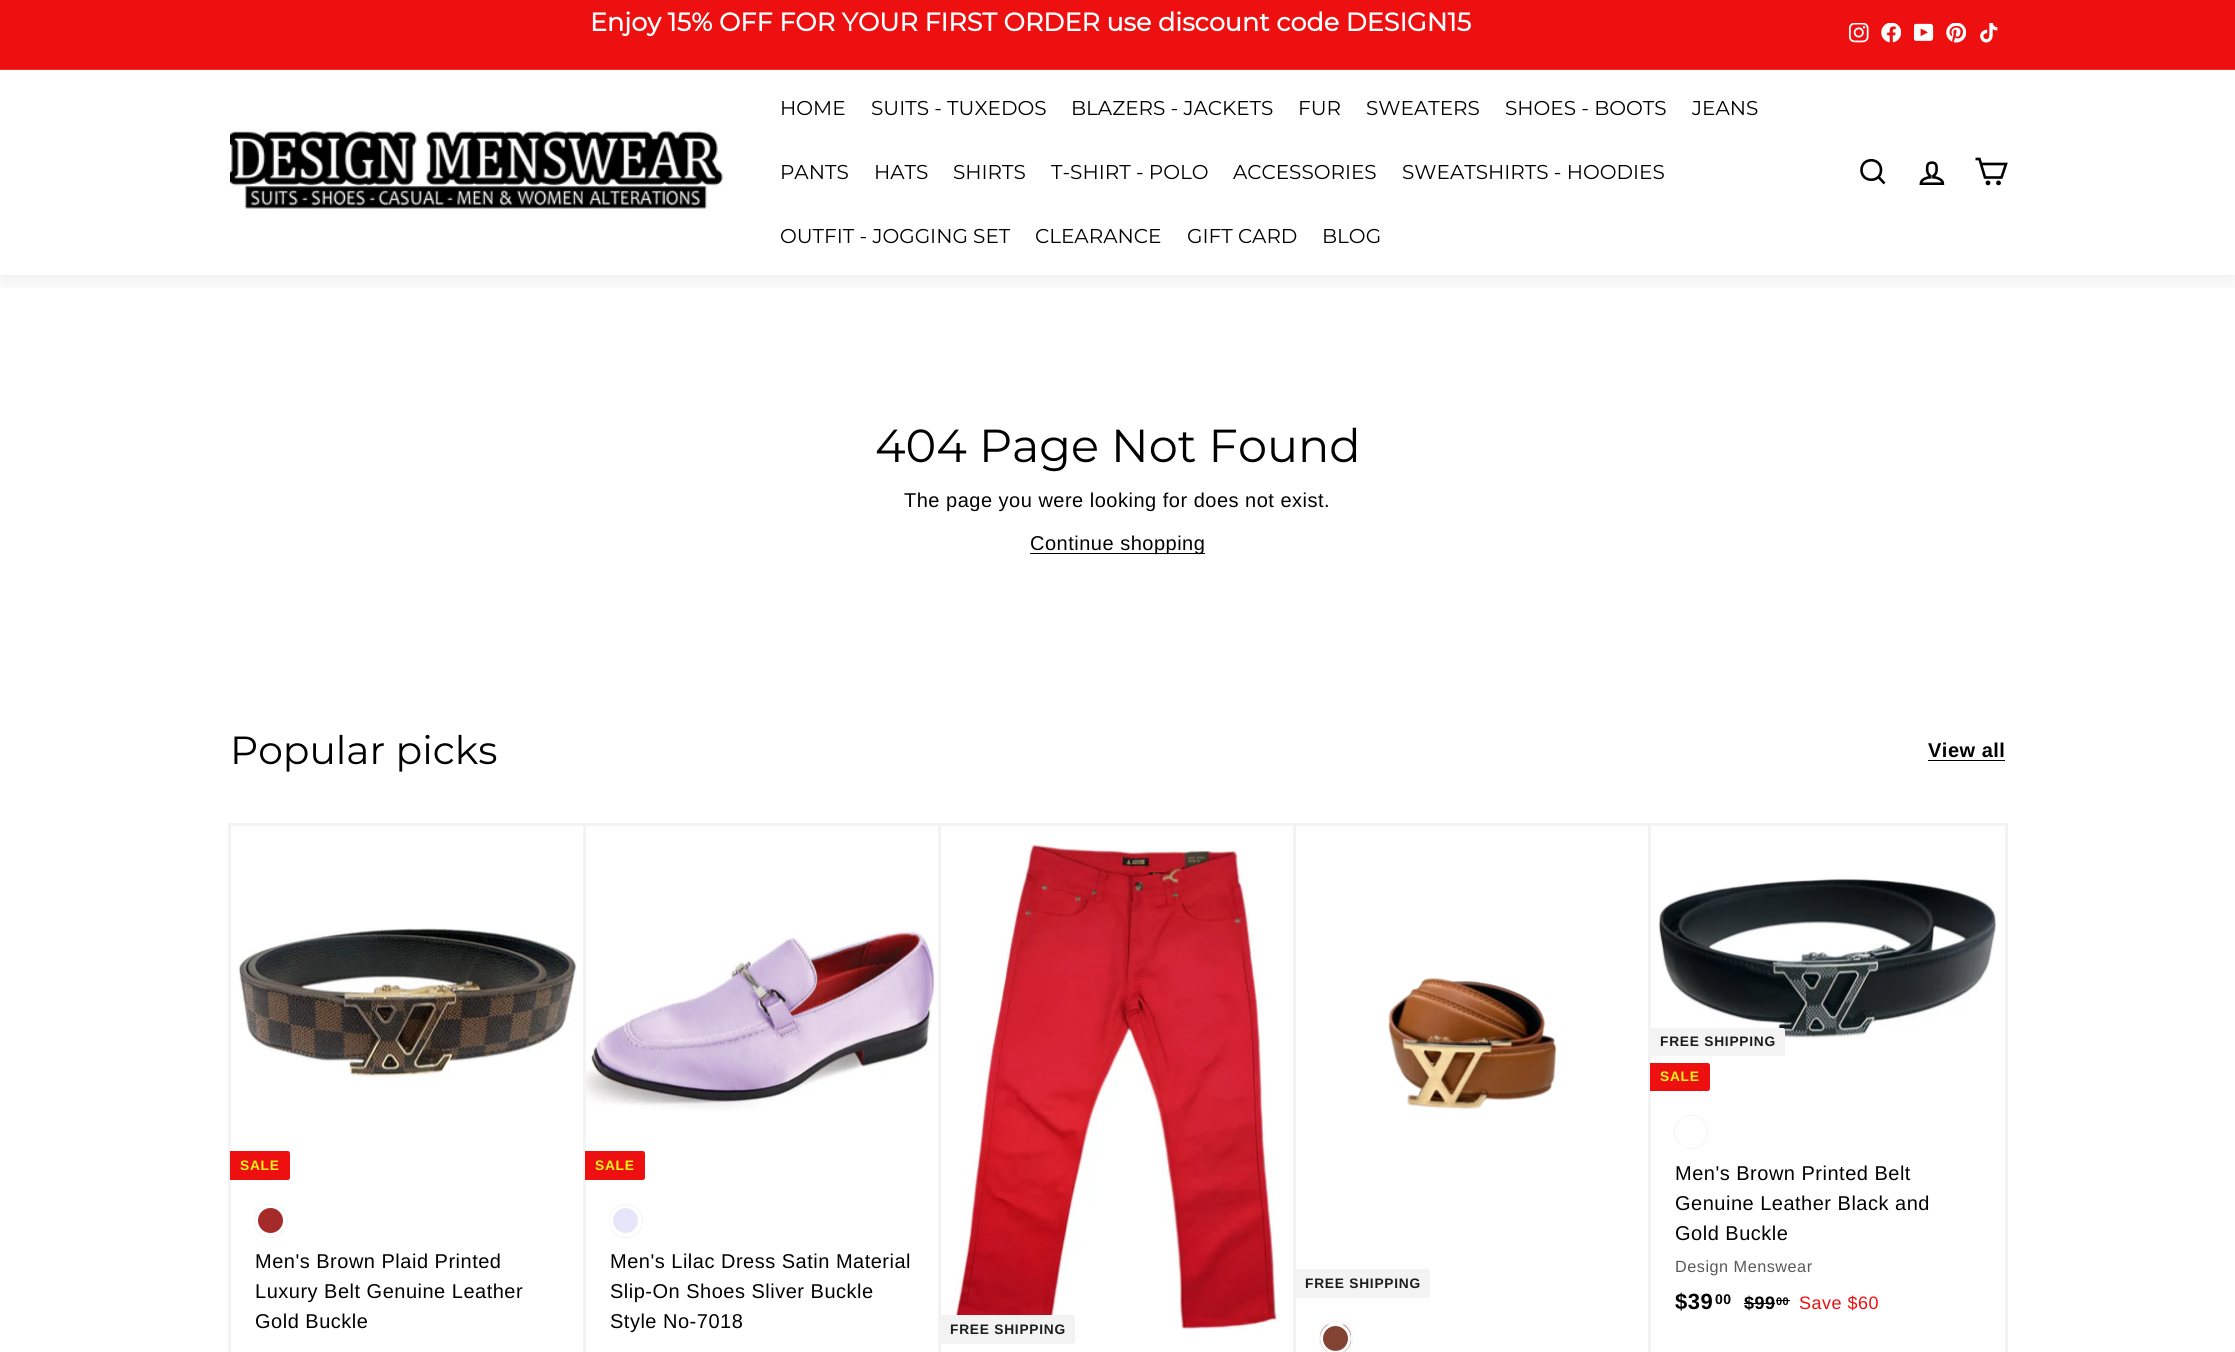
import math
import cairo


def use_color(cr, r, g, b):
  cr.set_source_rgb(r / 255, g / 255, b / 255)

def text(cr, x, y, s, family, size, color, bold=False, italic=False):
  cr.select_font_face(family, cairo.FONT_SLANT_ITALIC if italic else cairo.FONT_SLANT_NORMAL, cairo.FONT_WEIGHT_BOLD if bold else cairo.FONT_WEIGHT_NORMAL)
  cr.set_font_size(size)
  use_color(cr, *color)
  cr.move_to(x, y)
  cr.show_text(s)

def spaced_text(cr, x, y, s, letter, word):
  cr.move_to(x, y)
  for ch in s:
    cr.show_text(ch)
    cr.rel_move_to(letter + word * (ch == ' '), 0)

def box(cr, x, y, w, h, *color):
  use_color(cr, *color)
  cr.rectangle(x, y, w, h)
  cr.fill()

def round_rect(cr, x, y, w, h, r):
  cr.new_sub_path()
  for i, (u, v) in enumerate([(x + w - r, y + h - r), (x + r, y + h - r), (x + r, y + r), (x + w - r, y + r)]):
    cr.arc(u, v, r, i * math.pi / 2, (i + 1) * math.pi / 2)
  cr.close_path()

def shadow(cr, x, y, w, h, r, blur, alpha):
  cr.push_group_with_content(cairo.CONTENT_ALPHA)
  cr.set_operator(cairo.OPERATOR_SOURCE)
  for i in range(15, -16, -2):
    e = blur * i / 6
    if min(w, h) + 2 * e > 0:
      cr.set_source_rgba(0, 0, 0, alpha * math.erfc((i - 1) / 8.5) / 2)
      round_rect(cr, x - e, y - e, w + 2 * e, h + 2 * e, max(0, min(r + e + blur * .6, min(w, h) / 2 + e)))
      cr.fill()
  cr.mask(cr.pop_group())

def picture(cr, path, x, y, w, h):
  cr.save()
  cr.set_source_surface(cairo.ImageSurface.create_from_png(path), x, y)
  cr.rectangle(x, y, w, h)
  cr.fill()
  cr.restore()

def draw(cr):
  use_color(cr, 255, 255, 255)
  cr.paint()
  cr.save()
  cr.rectangle(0, 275, 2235, 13)
  cr.clip()
  use_color(cr, 0, 0, 0)
  shadow(cr, 0, 70, 2235, 205, 0, 15.5, 0.1)
  cr.restore()
  box(cr, 0, 0, 2235, 69, 238, 16, 16)
  picture(cr, "img_01.png", 1849, 23, 20, 20)
  picture(cr, "img_02.png", 1881, 23, 20, 20)
  picture(cr, "img_03.png", 1914, 23, 20, 18)
  picture(cr, "img_04.png", 1946, 23, 20, 20)
  picture(cr, "img_05.png", 1980, 23, 18, 20)
  box(cr, 0, 69, 2235, 1, 241, 52, 52)
  picture(cr, "img_06.png", 230, 129, 495, 82)
  cr.new_path()
  cr.move_to(1881, 170)
  cr.curve_to(1881, 183, 1861.5, 183, 1861.5, 170)
  cr.curve_to(1861.5, 157, 1881, 157, 1881, 170)
  cr.close_path()
  cr.move_to(1884.5, 183.5)
  cr.line_to(1878.5, 177)
  use_color(cr, 0, 0, 0)
  cr.set_line_width(2.6)
  cr.stroke()
  picture(cr, "img_07.png", 1919, 161, 26, 24)
  cr.new_path()
  cr.move_to(1981, 164)
  cr.line_to(2006, 164)
  cr.line_to(2001.5, 177.5)
  cr.line_to(1985, 177.5)
  cr.line_to(1979.5, 159)
  cr.line_to(1975.5, 159)
  cr.stroke()
  cr.arc(1988, 182.9, 1.1, 0, 2 * math.pi)
  cr.stroke()
  cr.arc(1998.5, 182.9, 1.1, 0, 2 * math.pi)
  cr.stroke()
  box(cr, 1030, 553, 175, 1, 0, 0, 0)
  box(cr, 1928, 760, 77, 1, 0, 0, 0)
  picture(cr, "img_08.png", 238, 928, 339, 150)
  cr.arc(271, 1221, 16.5, 0, 2 * math.pi)
  use_color(cr, 243, 243, 243)
  cr.set_line_width(1)
  cr.stroke()
  use_color(cr, 165, 42, 42)
  cr.arc(270.5, 1220.5, 14, 0, 2 * math.pi)
  cr.fill_preserve()
  use_color(cr, 255, 255, 255)
  cr.set_line_width(3)
  cr.stroke()
  cr.rectangle(229.5, 824.5, 357, 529)
  use_color(cr, 243, 243, 243)
  cr.stroke()
  use_color(cr, 238, 16, 16)
  cr.new_path()
  cr.move_to(230, 1151)
  cr.line_to(287.5, 1151)
  cr.curve_to(289, 1151, 290, 1152, 290, 1153.5)
  cr.line_to(290, 1177.5)
  cr.curve_to(290, 1179, 289, 1180, 287.5, 1180)
  cr.line_to(230, 1180)
  cr.close_path()
  cr.fill()
  box(cr, 586, 826, 2, 526, 255, 255, 255)
  picture(cr, "img_09.png", 586, 929, 350, 182)
  cr.arc(626, 1221, 16.5, 0, 2 * math.pi)
  use_color(cr, 243, 243, 243)
  cr.set_line_width(1)
  cr.stroke()
  use_color(cr, 230, 230, 250)
  cr.arc(625.5, 1220.5, 14, 0, 2 * math.pi)
  cr.fill_preserve()
  use_color(cr, 255, 255, 255)
  cr.set_line_width(3)
  cr.stroke()
  cr.rectangle(584.5, 824.5, 357, 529)
  use_color(cr, 243, 243, 243)
  cr.stroke()
  use_color(cr, 238, 16, 16)
  cr.new_path()
  cr.move_to(585, 1151)
  cr.line_to(642.5, 1151)
  cr.curve_to(644, 1151, 645, 1152, 645, 1153.5)
  cr.line_to(645, 1177.5)
  cr.curve_to(645, 1179, 644, 1180, 642.5, 1180)
  cr.line_to(585, 1180)
  cr.close_path()
  cr.fill()
  box(cr, 941, 826, 2, 526, 255, 255, 255)
  picture(cr, "img_13.png", 955, 844, 323, 493)
  cr.rectangle(939.5, 824.5, 357, 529)
  use_color(cr, 243, 243, 243)
  cr.stroke()
  box(cr, 1296, 826, 2, 526, 255, 255, 255)
  picture(cr, "img_10.png", 1388, 978, 169, 132)
  cr.arc(1336, 1338, 16.5, 0, 2 * math.pi)
  use_color(cr, 243, 243, 243)
  cr.set_line_width(1)
  cr.stroke()
  picture(cr, "img_11.png", 1320, 1324, 32, 28)
  cr.arc(1335.5, 1338.5, 14, 0, 2 * math.pi)
  use_color(cr, 255, 255, 255)
  cr.set_line_width(3)
  cr.stroke()
  cr.rectangle(1294.5, 824.5, 357, 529)
  use_color(cr, 243, 243, 243)
  cr.stroke()
  cr.new_path()
  cr.move_to(1295, 1269)
  cr.line_to(1427.5, 1269)
  cr.curve_to(1429, 1269, 1430, 1270, 1430, 1271.5)
  cr.line_to(1430, 1295.5)
  cr.curve_to(1430, 1297, 1429, 1298, 1427.5, 1298)
  cr.line_to(1295, 1298)
  cr.close_path()
  cr.fill()
  box(cr, 1651, 826, 2, 526, 255, 255, 255)
  picture(cr, "img_12.png", 1658, 876, 339, 162)
  cr.arc(1691, 1132, 16.5, 0, 2 * math.pi)
  use_color(cr, 243, 243, 243)
  cr.set_line_width(1)
  cr.stroke()
  round_rect(cr, 1676.5, 1117.5, 28, 29, 14)
  use_color(cr, 255, 255, 255)
  cr.set_line_width(3)
  cr.stroke()
  box(cr, 1744, 1303, 31, 1, 0, 0, 0)
  box(cr, 1776, 1300, 14, 1, 0, 0, 0)
  cr.rectangle(1649.5, 824.5, 357, 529)
  use_color(cr, 243, 243, 243)
  cr.stroke()
  cr.new_path()
  cr.move_to(1650, 1028)
  cr.line_to(1782.5, 1028)
  cr.curve_to(1784, 1028, 1785, 1029, 1785, 1030.5)
  cr.line_to(1785, 1053.5)
  cr.curve_to(1785, 1055, 1784, 1056, 1782.5, 1056)
  cr.line_to(1650, 1056)
  cr.close_path()
  cr.fill()
  use_color(cr, 238, 16, 16)
  cr.new_path()
  cr.move_to(1650, 1063)
  cr.line_to(1707.5, 1063)
  cr.curve_to(1709, 1063, 1710, 1064, 1710, 1065.5)
  cr.line_to(1710, 1088.5)
  cr.curve_to(1710, 1090, 1709, 1091, 1707.5, 1091)
  cr.line_to(1650, 1091)
  cr.close_path()
  cr.fill()
  use_color(cr, 243, 243, 243)
  cr.new_path()
  cr.move_to(940, 1315)
  cr.line_to(1072.5, 1315)
  cr.curve_to(1074, 1315, 1075, 1316, 1075, 1317.5)
  cr.line_to(1075, 1341.5)
  cr.curve_to(1075, 1343, 1074, 1344, 1072.5, 1344)
  cr.line_to(940, 1344)
  cr.close_path()
  cr.fill()
  box(cr, 2233, 1350, 2, 2, 245, 245, 245)
  text(cr, 590, 31, "Enjoy 15% OFF FOR YOUR FIRST ORDER use discount code DESIGN15", "Montserrat", 25.45, (255, 255, 255), bold=True)
  text(cr, 780, 115, "HOME", "Montserrat", 20, (0, 0, 0))
  text(cr, 871, 115, "SUITS - TUXEDOS", "Montserrat", 20, (0, 0, 0))
  text(cr, 1071, 115, "BLAZERS - JACKETS", "Montserrat", 20, (0, 0, 0))
  text(cr, 1298, 115, "FUR", "Montserrat", 20, (0, 0, 0))
  text(cr, 1366, 115, "SWEATERS", "Montserrat", 20, (0, 0, 0))
  text(cr, 1505, 115, "SHOES - BOOTS", "Montserrat", 20, (0, 0, 0))
  text(cr, 1692, 115, "JEANS", "Montserrat", 20, (0, 0, 0))
  text(cr, 780, 179, "PANTS", "Montserrat", 20, (0, 0, 0))
  text(cr, 874, 179, "HATS", "Montserrat", 20, (0, 0, 0))
  text(cr, 953, 179, "SHIRTS", "Montserrat", 20, (0, 0, 0))
  text(cr, 1051, 179, "T-SHIRT - POLO", "Montserrat", 20, (0, 0, 0))
  text(cr, 1233, 179, "ACCESSORIES", "Montserrat", 20, (0, 0, 0))
  text(cr, 1402, 179, "SWEATSHIRTS - HOODIES", "Montserrat", 20, (0, 0, 0))
  text(cr, 780, 243, "OUTFIT - JOGGING SET", "Montserrat", 20, (0, 0, 0))
  text(cr, 1035, 243, "CLEARANCE", "Montserrat", 20, (0, 0, 0))
  text(cr, 1187, 243, "GIFT CARD", "Montserrat", 20, (0, 0, 0))
  text(cr, 1322, 243, "BLOG", "Montserrat", 20, (0, 0, 0))
  text(cr, 875, 462, "404 Page Not Found", "Montserrat", 46.25, (0, 0, 0))
  cr.select_font_face("Liberation Sans")
  cr.set_font_size(20)
  spaced_text(cr, 904, 507, "The page you were looking for does not exist.", 0.5, 0)
  spaced_text(cr, 1030, 550, "Continue shopping", 0.5, 0)
  text(cr, 230, 764, "Popular picks", "Montserrat", 39.25, (0, 0, 0))
  cr.select_font_face("Liberation Sans", cairo.FONT_SLANT_NORMAL, cairo.FONT_WEIGHT_BOLD)
  cr.set_font_size(20)
  spaced_text(cr, 1928, 757, "View all", 0.5, 0)
  cr.set_font_size(13.75)
  use_color(cr, 247, 244, 23)
  spaced_text(cr, 240, 1170, "SALE", 0.75, 0)
  cr.select_font_face("Liberation Sans")
  cr.set_font_size(20)
  use_color(cr, 0, 0, 0)
  spaced_text(cr, 255, 1268, "Men's Brown Plaid Printed", 0.5, 0)
  spaced_text(cr, 255, 1298, "Luxury Belt Genuine Leather", 0.5, 0)
  spaced_text(cr, 255, 1328, "Gold Buckle", 0.5, 0)
  cr.select_font_face("Liberation Sans", cairo.FONT_SLANT_NORMAL, cairo.FONT_WEIGHT_BOLD)
  cr.set_font_size(13.75)
  use_color(cr, 247, 244, 23)
  spaced_text(cr, 595, 1170, "SALE", 0.75, 0)
  cr.select_font_face("Liberation Sans")
  cr.set_font_size(20)
  use_color(cr, 0, 0, 0)
  spaced_text(cr, 610, 1268, "Men's Lilac Dress Satin Material", 0.5, 0)
  spaced_text(cr, 610, 1298, "Slip-On Shoes Sliver Buckle", 0.5, 0)
  spaced_text(cr, 610, 1328, "Style No-7018", 0.5, 0)
  cr.select_font_face("Liberation Sans", cairo.FONT_SLANT_NORMAL, cairo.FONT_WEIGHT_BOLD)
  cr.set_font_size(13.75)
  use_color(cr, 28, 29, 29)
  spaced_text(cr, 1305, 1288, "FREE SHIPPING", 0.75, 0)
  spaced_text(cr, 1660, 1046, "FREE SHIPPING", 0.75, 0)
  use_color(cr, 247, 244, 23)
  spaced_text(cr, 1660, 1081, "SALE", 0.75, 0)
  cr.select_font_face("Liberation Sans")
  cr.set_font_size(20)
  use_color(cr, 0, 0, 0)
  spaced_text(cr, 1675, 1180, "Men's Brown Printed Belt", 0.5, 0)
  spaced_text(cr, 1675, 1210, "Genuine Leather Black and", 0.5, 0)
  spaced_text(cr, 1675, 1240, "Gold Buckle", 0.5, 0)
  cr.set_font_size(16.25)
  use_color(cr, 89, 89, 89)
  spaced_text(cr, 1675, 1272, "Design Menswear", 0.5, 0)
  cr.select_font_face("Liberation Sans", cairo.FONT_SLANT_NORMAL, cairo.FONT_WEIGHT_BOLD)
  cr.set_font_size(22)
  use_color(cr, 0, 0, 0)
  spaced_text(cr, 1675, 1309, "$39", 0.5, 0)
  cr.set_font_size(14)
  spaced_text(cr, 1715, 1304, "00", 0.5, 0)
  cr.set_font_size(18)
  spaced_text(cr, 1744, 1309, "$99", 0.5, 0)
  cr.set_font_size(11)
  spaced_text(cr, 1776, 1305, "00", 0.5, 0)
  cr.select_font_face("Liberation Sans")
  cr.set_font_size(18)
  use_color(cr, 238, 16, 16)
  spaced_text(cr, 1799, 1309, "Save $60", 0.5, 0)
  cr.select_font_face("Liberation Sans", cairo.FONT_SLANT_NORMAL, cairo.FONT_WEIGHT_BOLD)
  cr.set_font_size(13.75)
  use_color(cr, 28, 29, 29)
  spaced_text(cr, 950, 1334, "FREE SHIPPING", 0.75, 0)


surface = cairo.ImageSurface(cairo.FORMAT_RGB24, 2235, 1352)
cr = cairo.Context(surface)
options = cairo.FontOptions()
options.set_hint_metrics(cairo.HINT_METRICS_OFF)
options.set_hint_style(cairo.HINT_STYLE_NONE)
cr.set_font_options(options)
cr.set_miter_limit(4)
draw(cr)
surface.write_to_png("out.png")
